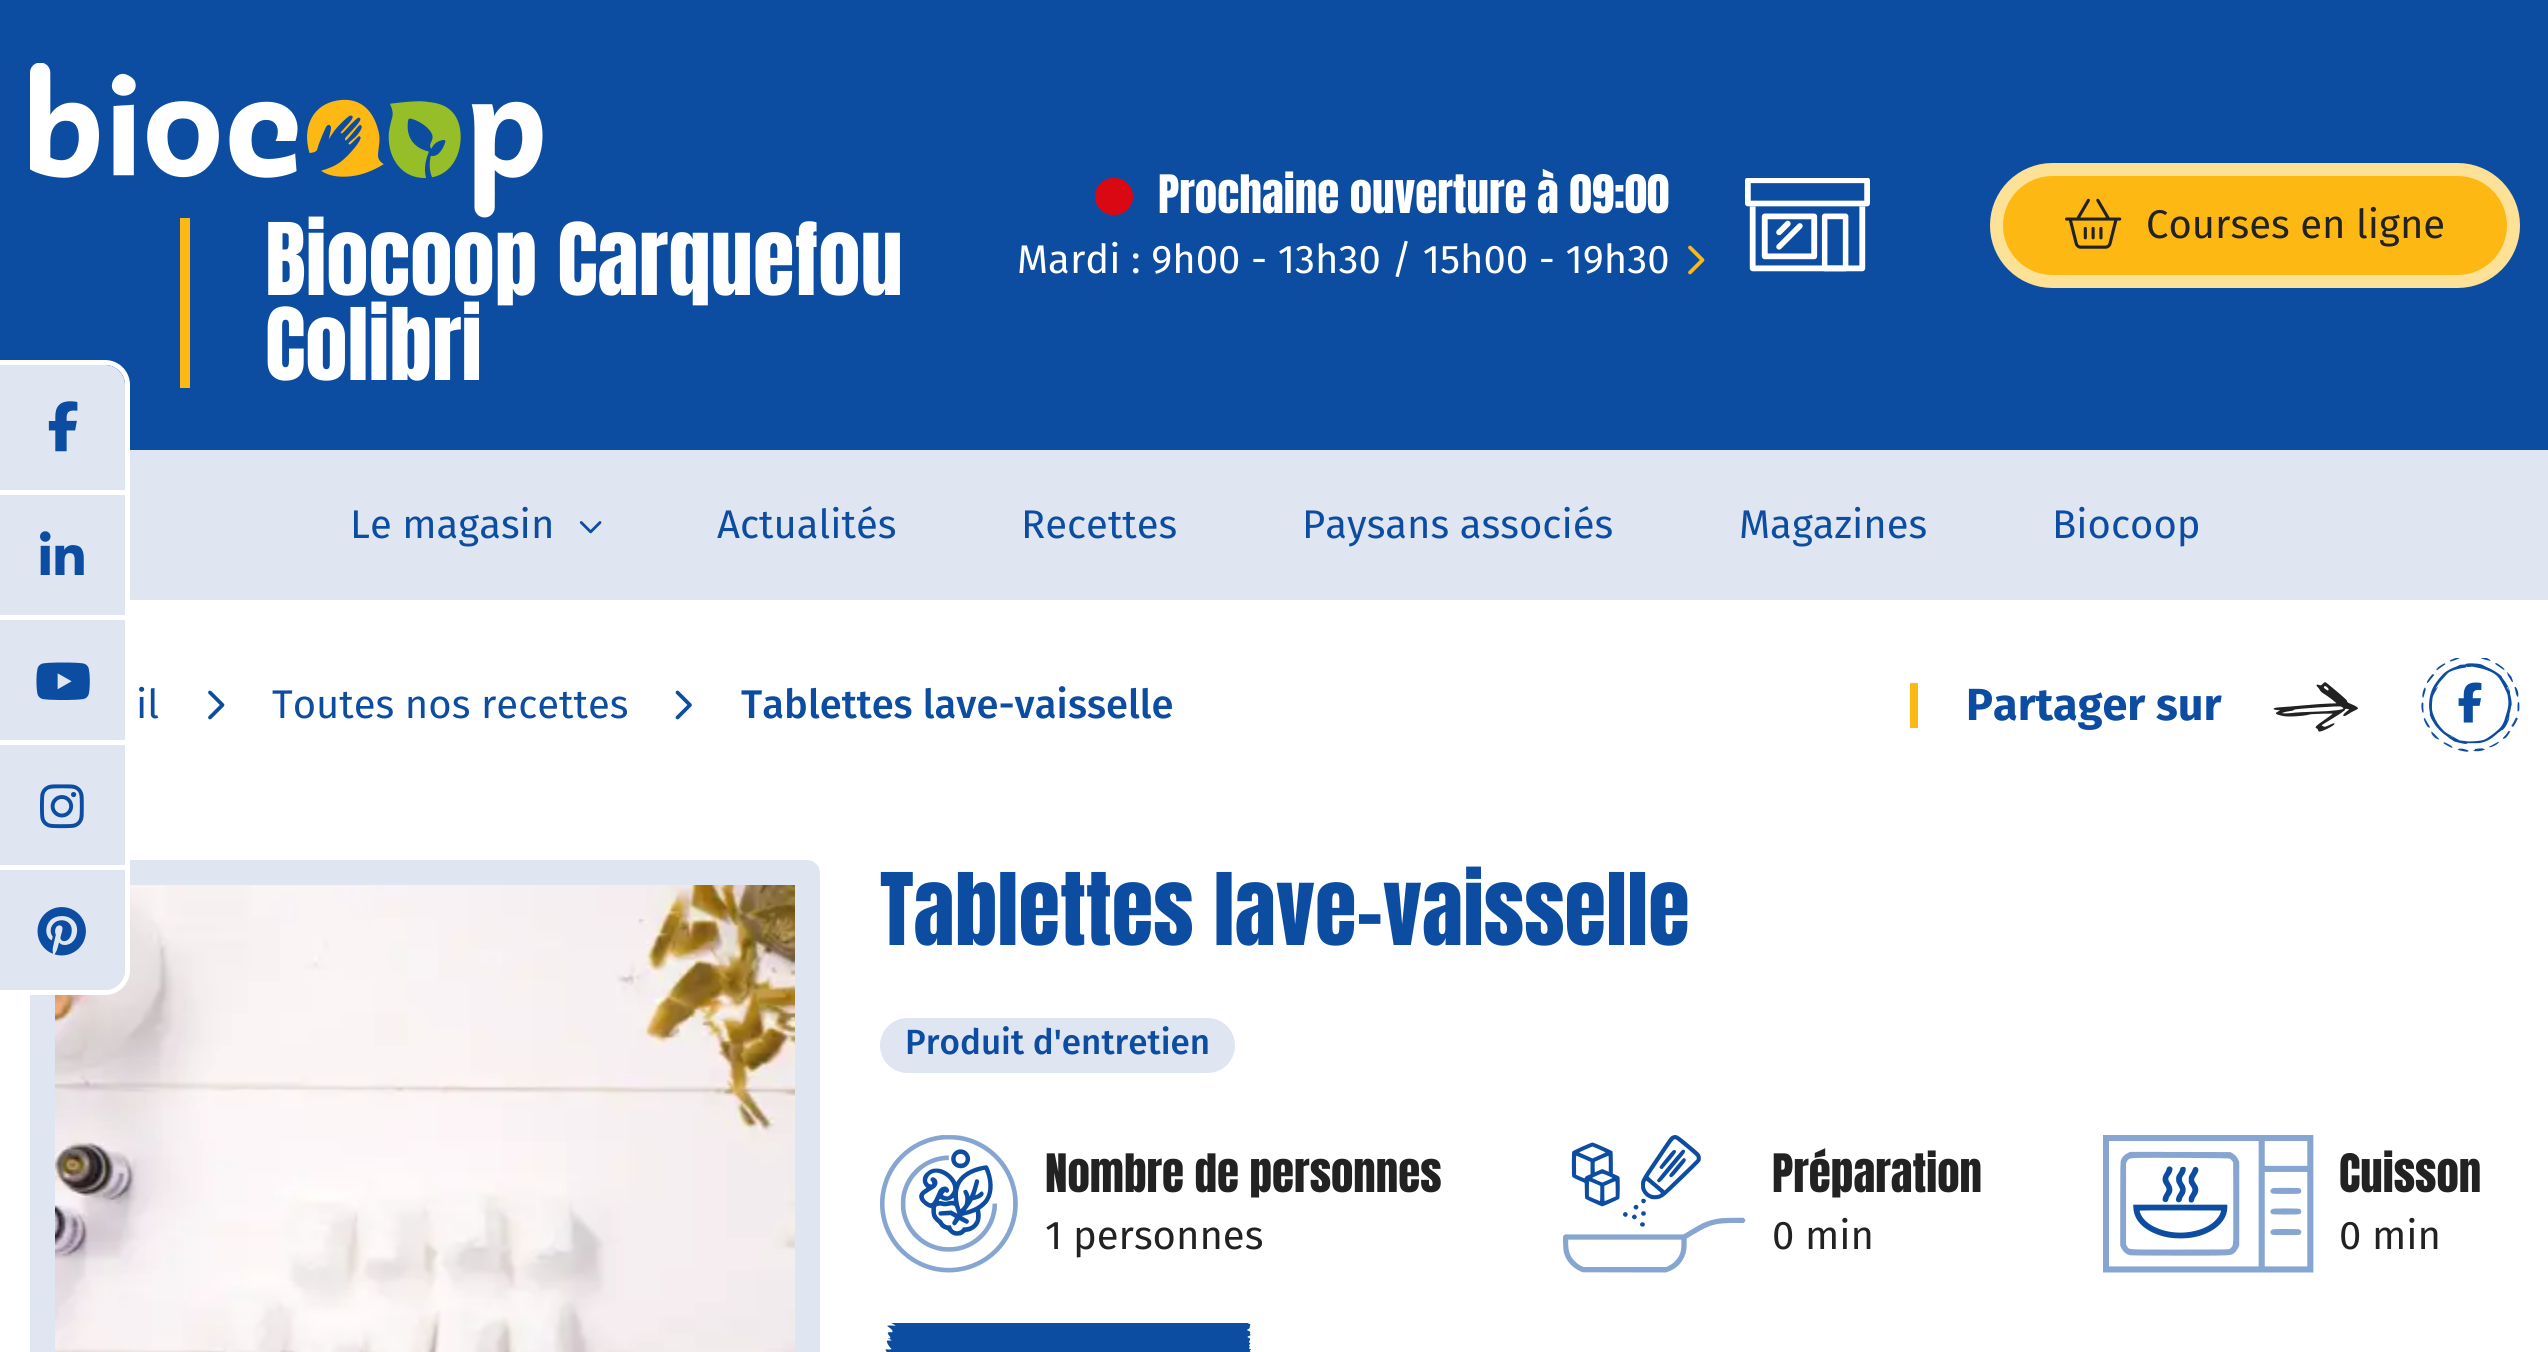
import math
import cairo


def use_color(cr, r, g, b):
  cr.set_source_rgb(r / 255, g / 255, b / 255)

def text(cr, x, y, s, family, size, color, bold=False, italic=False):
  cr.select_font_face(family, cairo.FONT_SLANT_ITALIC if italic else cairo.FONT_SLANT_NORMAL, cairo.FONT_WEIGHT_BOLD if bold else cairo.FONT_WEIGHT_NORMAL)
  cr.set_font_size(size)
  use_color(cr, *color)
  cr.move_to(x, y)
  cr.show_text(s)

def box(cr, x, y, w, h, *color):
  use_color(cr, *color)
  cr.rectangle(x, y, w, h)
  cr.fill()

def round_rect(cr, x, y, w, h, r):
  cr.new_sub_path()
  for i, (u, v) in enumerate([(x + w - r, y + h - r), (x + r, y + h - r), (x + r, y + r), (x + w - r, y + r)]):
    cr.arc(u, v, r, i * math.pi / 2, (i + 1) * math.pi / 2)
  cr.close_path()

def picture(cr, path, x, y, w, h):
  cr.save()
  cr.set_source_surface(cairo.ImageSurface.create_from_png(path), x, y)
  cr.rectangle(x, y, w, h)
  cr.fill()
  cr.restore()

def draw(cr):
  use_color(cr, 255, 255, 255)
  cr.paint()
  box(cr, 0, 0, 2548, 450, 12, 77, 162)
  round_rect(cr, 42.5, 872.5, 765, 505, 0.5)
  use_color(cr, 223, 229, 241)
  cr.set_line_width(25)
  cr.stroke()
  picture(cr, "img_16.png", 55, 885, 740, 467)
  cr.new_path()
  cr.move_to(-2.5, 362.5)
  cr.line_to(105, 362.5)
  cr.curve_to(117.5, 362.5, 127.5, 372.5, 127.5, 385)
  cr.line_to(127.5, 970)
  cr.curve_to(127.5, 982.5, 117.5, 992.5, 105, 992.5)
  cr.line_to(-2.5, 992.5)
  cr.close_path()
  use_color(cr, 255, 255, 255)
  cr.set_line_width(5)
  cr.stroke()
  use_color(cr, 223, 229, 241)
  cr.new_path()
  cr.move_to(0, 365)
  cr.line_to(105, 365)
  cr.curve_to(116, 365, 125, 374, 125, 385)
  cr.line_to(125, 490)
  cr.line_to(0, 490)
  cr.close_path()
  cr.fill()
  picture(cr, "img_01.png", 48, 401, 30, 51)
  box(cr, 0, 495, 125, 120, 223, 229, 241)
  picture(cr, "img_02.png", 40, 531, 44, 44)
  box(cr, 0, 620, 125, 120, 223, 229, 241)
  picture(cr, "img_03.png", 36, 662, 54, 38)
  box(cr, 0, 745, 125, 120, 223, 229, 241)
  picture(cr, "img_04.png", 40, 784, 44, 45)
  cr.new_path()
  cr.move_to(0, 870)
  cr.line_to(125, 870)
  cr.line_to(125, 970)
  cr.curve_to(125, 981, 116, 990, 105, 990)
  cr.line_to(0, 990)
  cr.close_path()
  cr.fill()
  box(cr, 30, 865, 95, 5, 255, 255, 255)
  picture(cr, "img_05.png", 37, 907, 49, 49)
  picture(cr, "img_06.png", 30, 63, 513, 155)
  box(cr, 180, 218, 10, 170, 253, 184, 19)
  use_color(cr, 218, 8, 18)
  round_rect(cr, 1095, 178, 38, 37, 18.5)
  cr.fill()
  picture(cr, "img_07.png", 1745, 178, 125, 94)
  picture(cr, "img_08.png", 1688, 245, 17, 30)
  use_color(cr, 253, 184, 19)
  round_rect(cr, 1996.5, 169.5, 517, 112, 56)
  cr.fill_preserve()
  use_color(cr, 252, 225, 151)
  cr.set_line_width(13)
  cr.stroke()
  picture(cr, "img_09.png", 2065, 198, 57, 51)
  box(cr, 130, 450, 2418, 150, 223, 229, 241)
  picture(cr, "img_10.png", 579, 521, 23, 13)
  picture(cr, "img_11.png", 208, 690, 17, 30)
  picture(cr, "img_12.png", 675, 690, 17, 30)
  box(cr, 1910, 683, 8, 45, 253, 184, 19)
  picture(cr, "img_13.png", 2273, 682, 85, 50)
  picture(cr, "img_14.png", 2421, 658, 99, 94)
  picture(cr, "img_15.png", 2458, 682, 24, 41)
  use_color(cr, 223, 229, 241)
  round_rect(cr, 880, 1018, 355, 55, 27.5)
  cr.fill()
  picture(cr, "img_17.png", 880, 1135, 138, 138)
  picture(cr, "img_18.png", 1563, 1135, 183, 138)
  picture(cr, "img_19.png", 2103, 1135, 211, 138)
  picture(cr, "img_20.png", 885, 1323, 366, 29)
  text(cr, 265, 295, "Biocoop Carquefou", "Anton", 85, (255, 255, 255))
  text(cr, 265, 380, "Colibri", "Anton", 85, (255, 255, 255))
  text(cr, 1158, 213, "Prochaine ouverture à 09:00", "Anton", 45, (255, 255, 255))
  text(cr, 1017, 273, "Mardi : 9h00 - 13h30 / 15h00 - 19h30", "Fira Sans", 40, (255, 255, 255))
  text(cr, 2146, 238, "Courses en ligne", "Fira Sans", 40, (34, 34, 34))
  text(cr, 350, 538, "Le magasin", "Fira Sans", 40, (12, 77, 162))
  text(cr, 717, 538, "Actualités", "Fira Sans", 40, (12, 77, 162))
  text(cr, 1021, 538, "Recettes", "Fira Sans", 40, (12, 77, 162))
  text(cr, 1302, 538, "Paysans associés", "Fira Sans", 40, (12, 77, 162))
  text(cr, 1739, 538, "Magazines", "Fira Sans", 40, (12, 77, 162))
  text(cr, 2052, 538, "Biocoop", "Fira Sans", 40, (12, 77, 162))
  text(cr, 136, 718, "il", "Fira Sans", 40, (12, 77, 162))
  text(cr, 272, 718, "Toutes nos recettes", "Fira Sans", 40, (12, 77, 162))
  text(cr, 741, 718, "Tablettes lave-vaisselle", "Fira Sans Medium", 40, (12, 77, 162))
  text(cr, 1966, 720, "Partager sur", "Fira Sans", 45, (12, 77, 162), bold=True)
  text(cr, 880, 945, "Tablettes lave-vaisselle", "Anton", 85, (12, 77, 162))
  text(cr, 905, 1054, "Produit d'entretien", "Fira Sans Medium", 35, (12, 77, 162))
  text(cr, 1045, 1192, "Nombre de personnes", "Anton", 45, (34, 34, 34))
  text(cr, 1045, 1249, "1 personnes", "Fira Sans", 40, (34, 34, 34))
  text(cr, 1772, 1192, "Préparation", "Anton", 45, (34, 34, 34))
  text(cr, 1772, 1249, "0 min", "Fira Sans", 40, (34, 34, 34))
  text(cr, 2339, 1192, "Cuisson", "Anton", 45, (34, 34, 34))
  text(cr, 2339, 1249, "0 min", "Fira Sans", 40, (34, 34, 34))


surface = cairo.ImageSurface(cairo.FORMAT_RGB24, 2548, 1352)
cr = cairo.Context(surface)
options = cairo.FontOptions()
options.set_hint_metrics(cairo.HINT_METRICS_OFF)
options.set_hint_style(cairo.HINT_STYLE_NONE)
cr.set_font_options(options)
cr.set_miter_limit(4)
draw(cr)
surface.write_to_png("out.png")
